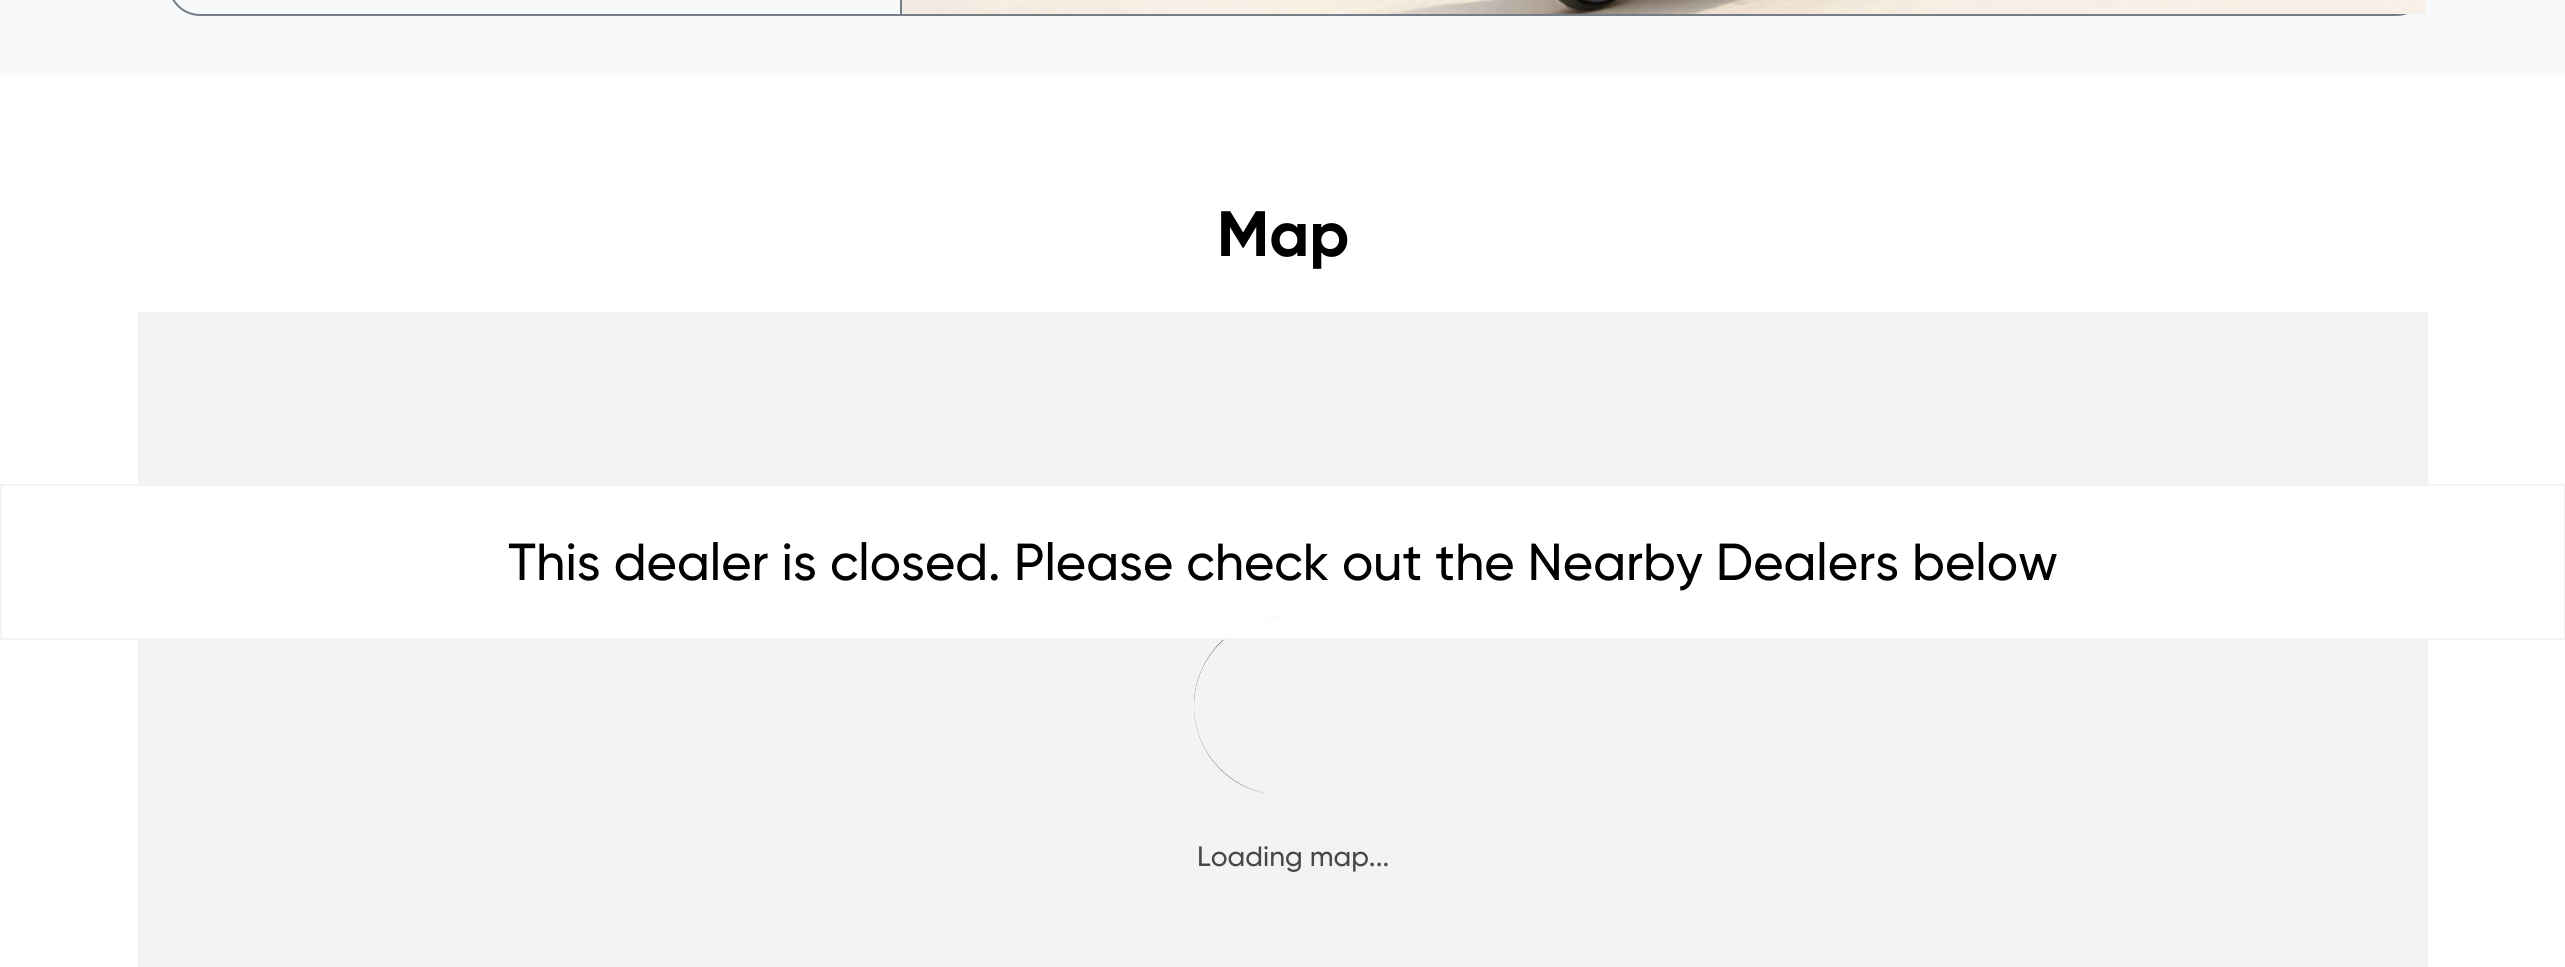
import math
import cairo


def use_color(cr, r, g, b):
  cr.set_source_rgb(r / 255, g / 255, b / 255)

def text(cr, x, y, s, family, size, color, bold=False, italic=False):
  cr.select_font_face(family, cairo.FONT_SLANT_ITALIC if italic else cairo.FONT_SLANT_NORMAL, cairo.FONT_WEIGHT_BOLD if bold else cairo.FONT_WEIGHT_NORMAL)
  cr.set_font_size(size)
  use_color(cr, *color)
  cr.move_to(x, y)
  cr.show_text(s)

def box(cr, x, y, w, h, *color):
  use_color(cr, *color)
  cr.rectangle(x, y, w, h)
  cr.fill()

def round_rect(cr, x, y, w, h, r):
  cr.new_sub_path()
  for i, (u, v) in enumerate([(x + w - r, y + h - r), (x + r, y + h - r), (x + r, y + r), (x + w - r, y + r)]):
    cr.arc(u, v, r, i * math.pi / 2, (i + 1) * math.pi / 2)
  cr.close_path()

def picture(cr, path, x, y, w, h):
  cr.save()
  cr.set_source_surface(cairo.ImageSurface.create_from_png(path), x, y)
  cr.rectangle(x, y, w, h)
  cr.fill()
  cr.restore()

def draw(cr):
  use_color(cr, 255, 255, 255)
  cr.paint()
  box(cr, 0, 0, 2565, 76, 247, 249, 251)
  cr.new_path()
  cr.move_to(200, -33)
  cr.line_to(901, -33)
  cr.line_to(901, 15)
  cr.line_to(200, 15)
  cr.curve_to(183, 15, 169, 1, 169, -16)
  cr.line_to(169, -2)
  cr.curve_to(169, -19, 183, -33, 200, -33)
  cr.close_path()
  use_color(cr, 117, 126, 134)
  cr.stroke()
  cr.set_fill_rule(cairo.FILL_RULE_EVEN_ODD)
  cr.new_path()
  cr.move_to(902, -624)
  cr.line_to(2396, -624)
  cr.curve_to(2414, -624, 2428, -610, 2428, -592)
  cr.line_to(2428, -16)
  cr.curve_to(2428, 2, 2414, 16, 2396, 16)
  cr.line_to(902, 16)
  cr.close_path()
  cr.move_to(902, -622)
  cr.line_to(2396, -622)
  cr.curve_to(2413, -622, 2426, -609, 2426, -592)
  cr.line_to(2426, -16)
  cr.curve_to(2426, 1, 2413, 14, 2396, 14)
  cr.line_to(902, 14)
  cr.close_path()
  cr.fill()
  picture(cr, "img_01.png", 902, 0, 1524, 14)
  box(cr, 138, 312, 2290, 655, 243, 243, 243)
  gradient = cairo.LinearGradient(1194, 706, 1374, 706)
  gradient.add_color_stop_rgba(0.1, 0.49, 0.49, 0.49, 1)
  gradient.add_color_stop_rgba(0.42, 0.953, 0.953, 0.953, 1)
  cr.set_source(gradient)
  cr.arc(1284, 706, 90, 0, 2 * math.pi)
  cr.fill()
  use_color(cr, 111, 111, 111)
  cr.new_path()
  cr.move_to(1284, 616)
  cr.line_to(1284, 706)
  cr.line_to(1194, 706)
  cr.curve_to(1194, 656.5, 1234.5, 616, 1284, 616)
  cr.close_path()
  cr.fill()
  use_color(cr, 243, 243, 243)
  round_rect(cr, 1194, 618, 178, 176, 88)
  cr.fill()
  cr.set_source_rgba(1, 1, 1, 0.97)
  cr.rectangle(138, 486, 2290, 152)
  cr.fill()
  cr.rectangle(1, 485, 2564, 154)
  use_color(cr, 243, 243, 243)
  cr.stroke()
  text(cr, 1217, 256, "Map", "Gilroy", 64, (0, 0, 0), bold=True)
  text(cr, 1197, 866, "Loading map...", "Gilroy Medium", 28, (72, 72, 72))
  text(cr, 508, 580, "This dealer is closed. Please check out the Nearby Dealers below", "Gilroy Medium", 52, (0, 0, 0))


surface = cairo.ImageSurface(cairo.FORMAT_RGB24, 2565, 967)
cr = cairo.Context(surface)
options = cairo.FontOptions()
options.set_hint_metrics(cairo.HINT_METRICS_OFF)
options.set_hint_style(cairo.HINT_STYLE_NONE)
cr.set_font_options(options)
cr.set_miter_limit(4)
draw(cr)
surface.write_to_png("out.png")
